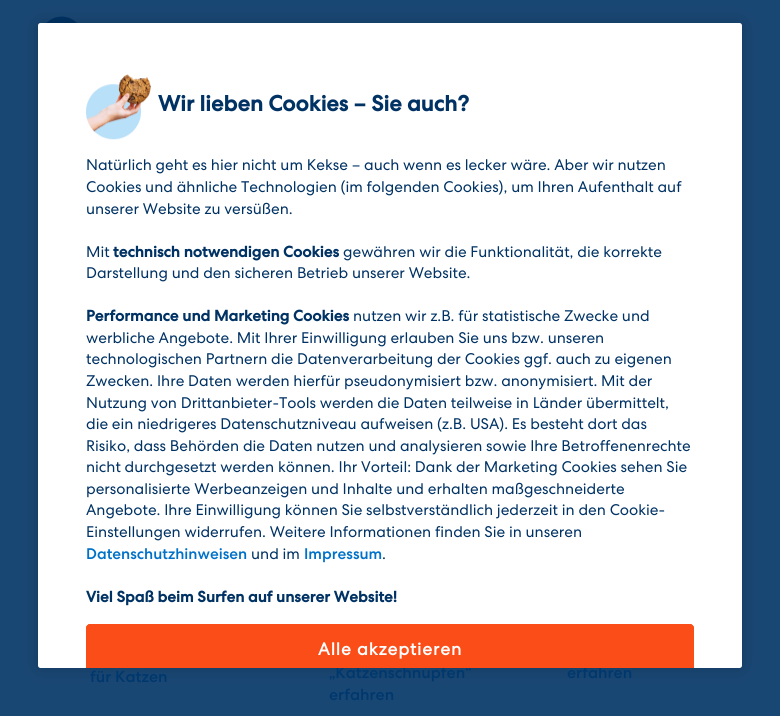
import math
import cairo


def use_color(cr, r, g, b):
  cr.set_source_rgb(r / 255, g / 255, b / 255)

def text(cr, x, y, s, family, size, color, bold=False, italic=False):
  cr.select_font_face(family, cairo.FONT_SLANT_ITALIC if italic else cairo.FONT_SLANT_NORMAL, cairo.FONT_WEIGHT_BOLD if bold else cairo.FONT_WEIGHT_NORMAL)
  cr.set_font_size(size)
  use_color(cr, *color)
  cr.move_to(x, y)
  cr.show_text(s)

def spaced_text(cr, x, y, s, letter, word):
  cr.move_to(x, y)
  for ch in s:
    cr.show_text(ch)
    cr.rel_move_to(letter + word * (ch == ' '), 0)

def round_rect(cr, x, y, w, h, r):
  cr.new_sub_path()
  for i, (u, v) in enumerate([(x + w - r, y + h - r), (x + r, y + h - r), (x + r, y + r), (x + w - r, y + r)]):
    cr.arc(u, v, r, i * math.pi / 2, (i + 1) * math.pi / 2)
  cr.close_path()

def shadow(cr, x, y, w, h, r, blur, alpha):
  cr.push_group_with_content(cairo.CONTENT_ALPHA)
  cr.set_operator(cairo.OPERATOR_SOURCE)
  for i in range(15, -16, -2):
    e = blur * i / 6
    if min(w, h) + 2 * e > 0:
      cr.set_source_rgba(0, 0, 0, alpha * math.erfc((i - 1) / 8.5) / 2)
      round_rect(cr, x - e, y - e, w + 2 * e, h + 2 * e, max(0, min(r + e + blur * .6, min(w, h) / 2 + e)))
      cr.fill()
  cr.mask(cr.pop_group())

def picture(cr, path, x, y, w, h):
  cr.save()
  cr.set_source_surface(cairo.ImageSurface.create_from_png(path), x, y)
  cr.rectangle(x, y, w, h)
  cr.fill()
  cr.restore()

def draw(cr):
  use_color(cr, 25, 71, 116)
  cr.paint()
  picture(cr, "img_02.png", 46, 16, 31, 7)
  use_color(cr, 0, 0, 0)
  shadow(cr, 38, 23, 704, 645, 2.5, 9, 0.2)
  text(cr, 90, 682, "für Katzen", "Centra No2 Medium", 16, (0, 56, 110))
  text(cr, 329, 678, "„Katzenschnupfen“", "Centra No2 Medium", 16, (0, 56, 110))
  text(cr, 329, 700, "erfahren", "Centra No2 Medium", 16, (0, 56, 110))
  text(cr, 567, 678, "erfahren", "Centra No2 Medium", 16, (0, 56, 110))
  use_color(cr, 255, 255, 255)
  round_rect(cr, 38, 23, 704, 645, 2.5)
  cr.fill()
  use_color(cr, 251, 77, 24)
  cr.new_path()
  cr.move_to(90, 624)
  cr.line_to(690, 624)
  cr.curve_to(692, 624, 694, 626, 694, 628)
  cr.line_to(694, 668)
  cr.line_to(86, 668)
  cr.line_to(86, 628)
  cr.curve_to(86, 626, 88, 624, 90, 624)
  cr.close_path()
  cr.fill()
  cr.new_path()
  cr.move_to(90, 624)
  cr.curve_to(88, 624, 86, 626, 86, 628)
  cr.line_to(86, 668)
  cr.line_to(87, 668)
  cr.line_to(87, 628)
  cr.curve_to(87, 626, 88, 625, 90, 625)
  cr.line_to(690, 625)
  cr.curve_to(692, 625, 693, 626, 693, 628)
  cr.line_to(693, 668)
  cr.line_to(694, 668)
  cr.line_to(694, 628)
  cr.curve_to(694, 626, 692, 624, 690, 624)
  cr.close_path()
  cr.fill()
  cr.select_font_face("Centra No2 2", cairo.FONT_SLANT_NORMAL, cairo.FONT_WEIGHT_BOLD)
  cr.set_font_size(17.5)
  use_color(cr, 255, 255, 255)
  spaced_text(cr, 318, 655, "Alle akzeptieren", 0.9, 0)
  text(cr, 86, 602, "Viel Spaß beim Surfen auf unserer Website!", "Centra No2", 15.4, (0, 50, 100), bold=True)
  text(cr, 382, 559, ".", "Centra No2", 15.4, (0, 50, 100))
  text(cr, 304, 559, "Impressum", "Centra No2 Medium", 15.4, (0, 113, 200))
  text(cr, 251, 559, "und im", "Centra No2", 15.4, (0, 50, 100))
  text(cr, 86, 559, "Datenschutzhinweisen", "Centra No2 Medium", 15.4, (0, 113, 200))
  text(cr, 86, 537, "Einstellungen widerrufen. Weitere Informationen finden Sie in unseren", "Centra No2", 15.4, (0, 50, 100))
  text(cr, 86, 515, "Angebote. Ihre Einwilligung können Sie selbstverständlich jederzeit in den Cookie-", "Centra No2", 15.4, (0, 50, 100))
  text(cr, 86, 494, "personalisierte Werbeanzeigen und Inhalte und erhalten maßgeschneiderte", "Centra No2", 15.4, (0, 50, 100))
  text(cr, 86, 472, "nicht durchgesetzt werden können. Ihr Vorteil: Dank der Marketing Cookies sehen Sie", "Centra No2", 15.4, (0, 50, 100))
  text(cr, 86, 451, "Risiko, dass Behörden die Daten nutzen und analysieren sowie Ihre Betroffenenrechte", "Centra No2", 15.4, (0, 50, 100))
  text(cr, 86, 429, "die ein niedrigeres Datenschutzniveau aufweisen (z.B. USA). Es besteht dort das", "Centra No2", 15.4, (0, 50, 100))
  text(cr, 86, 408, "Nutzung von Drittanbieter-Tools werden die Daten teilweise in Länder übermittelt,", "Centra No2", 15.4, (0, 50, 100))
  text(cr, 86, 386, "Zwecken. Ihre Daten werden hierfür pseudonymisiert bzw. anonymisiert. Mit der", "Centra No2", 15.4, (0, 50, 100))
  text(cr, 86, 364, "technologischen Partnern die Datenverarbeitung der Cookies ggf. auch zu eigenen", "Centra No2", 15.4, (0, 50, 100))
  text(cr, 86, 343, "werbliche Angebote. Mit Ihrer Einwilligung erlauben Sie uns bzw. unseren", "Centra No2", 15.4, (0, 50, 100))
  text(cr, 353, 321, "nutzen wir z.B. für statistische Zwecke und", "Centra No2", 15.4, (0, 50, 100))
  text(cr, 86, 321, "Performance und Marketing Cookies", "Centra No2", 15.4, (0, 50, 100), bold=True)
  text(cr, 86, 278, "Darstellung und den sicheren Betrieb unserer Website.", "Centra No2", 15.4, (0, 50, 100))
  text(cr, 343, 257, "gewähren wir die Funktionalität, die korrekte", "Centra No2", 15.4, (0, 50, 100))
  text(cr, 113, 257, "technisch notwendigen Cookies", "Centra No2", 15.4, (0, 50, 100), bold=True)
  text(cr, 86, 257, "Mit", "Centra No2", 15.4, (0, 50, 100))
  text(cr, 86, 214, "unserer Website zu versüßen.", "Centra No2", 15.4, (0, 50, 100))
  text(cr, 86, 192, "Cookies und ähnliche Technologien (im folgenden Cookies), um Ihren Aufenthalt auf", "Centra No2", 15.4, (0, 50, 100))
  text(cr, 86, 170, "Natürlich geht es hier nicht um Kekse – auch wenn es lecker wäre. Aber wir nutzen", "Centra No2", 15.4, (0, 50, 100))
  text(cr, 158, 111, "Wir lieben Cookies – Sie auch?", "Centra No2", 22, (0, 50, 100), bold=True)
  picture(cr, "img_01.png", 86, 74, 65, 66)


surface = cairo.ImageSurface(cairo.FORMAT_RGB24, 780, 716)
cr = cairo.Context(surface)
options = cairo.FontOptions()
options.set_hint_metrics(cairo.HINT_METRICS_OFF)
options.set_hint_style(cairo.HINT_STYLE_NONE)
cr.set_font_options(options)
cr.set_miter_limit(4)
draw(cr)
surface.write_to_png("out.png")
